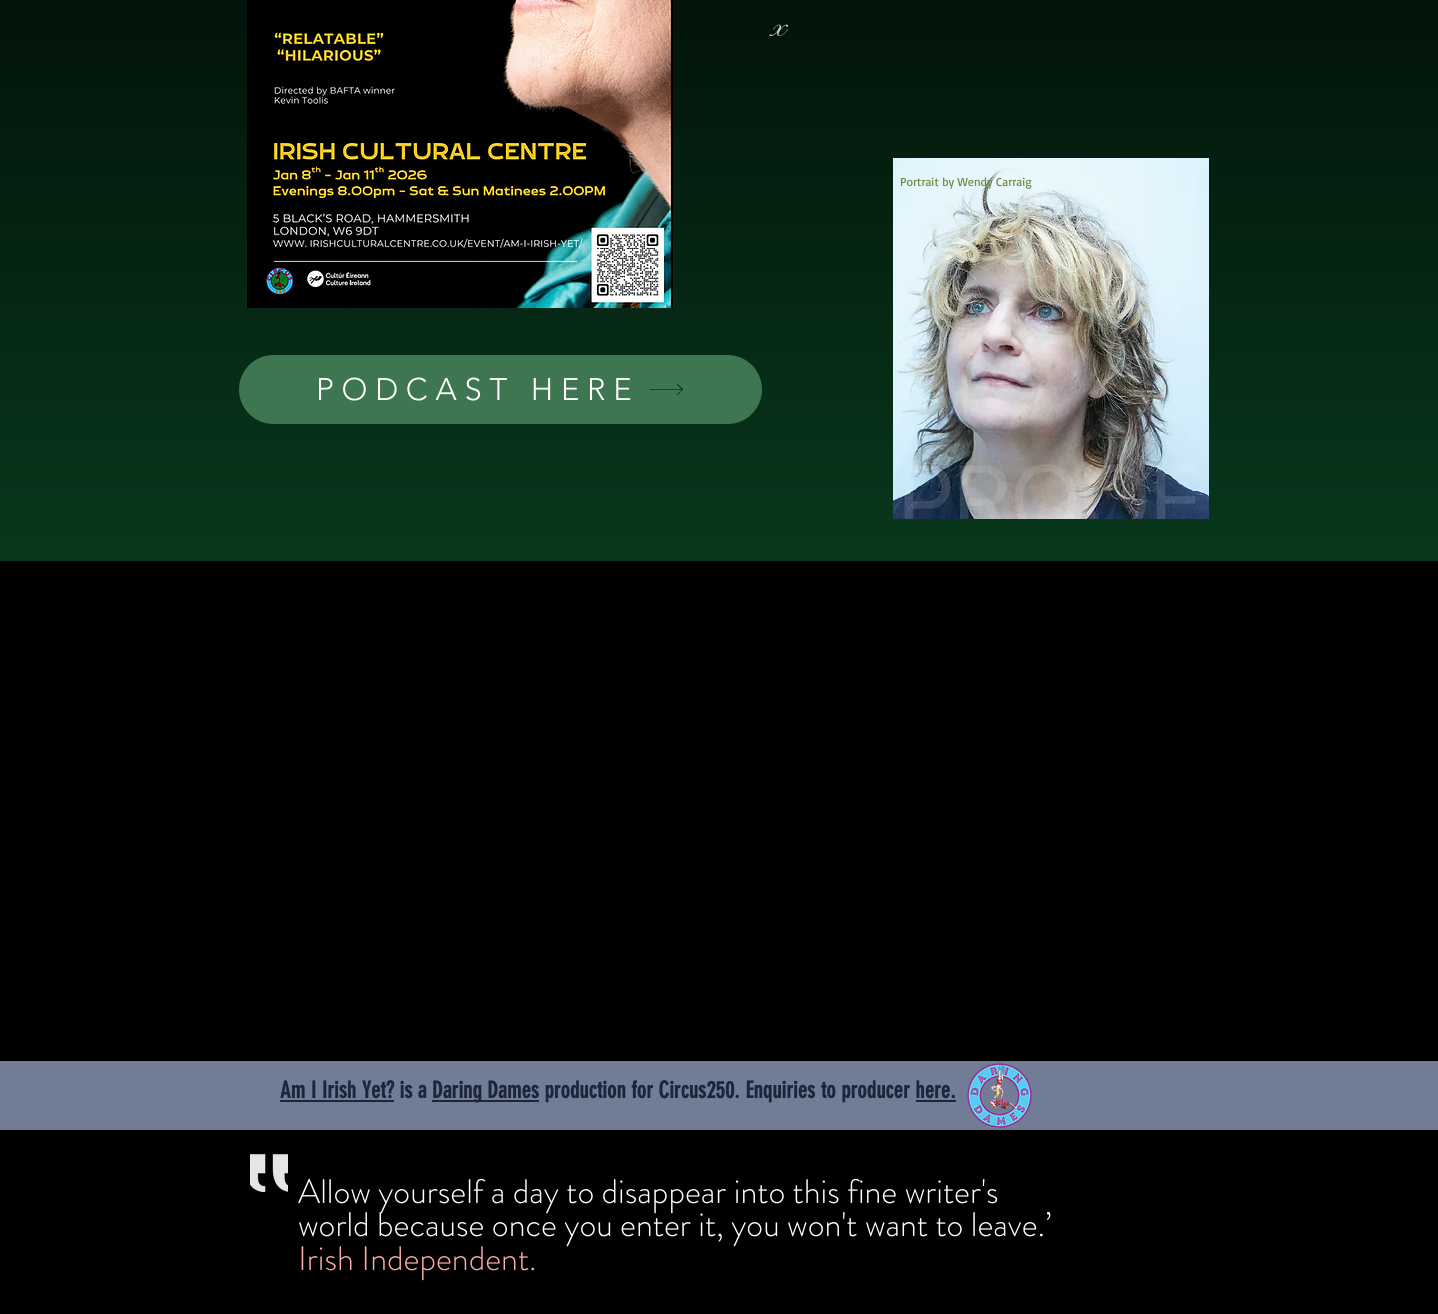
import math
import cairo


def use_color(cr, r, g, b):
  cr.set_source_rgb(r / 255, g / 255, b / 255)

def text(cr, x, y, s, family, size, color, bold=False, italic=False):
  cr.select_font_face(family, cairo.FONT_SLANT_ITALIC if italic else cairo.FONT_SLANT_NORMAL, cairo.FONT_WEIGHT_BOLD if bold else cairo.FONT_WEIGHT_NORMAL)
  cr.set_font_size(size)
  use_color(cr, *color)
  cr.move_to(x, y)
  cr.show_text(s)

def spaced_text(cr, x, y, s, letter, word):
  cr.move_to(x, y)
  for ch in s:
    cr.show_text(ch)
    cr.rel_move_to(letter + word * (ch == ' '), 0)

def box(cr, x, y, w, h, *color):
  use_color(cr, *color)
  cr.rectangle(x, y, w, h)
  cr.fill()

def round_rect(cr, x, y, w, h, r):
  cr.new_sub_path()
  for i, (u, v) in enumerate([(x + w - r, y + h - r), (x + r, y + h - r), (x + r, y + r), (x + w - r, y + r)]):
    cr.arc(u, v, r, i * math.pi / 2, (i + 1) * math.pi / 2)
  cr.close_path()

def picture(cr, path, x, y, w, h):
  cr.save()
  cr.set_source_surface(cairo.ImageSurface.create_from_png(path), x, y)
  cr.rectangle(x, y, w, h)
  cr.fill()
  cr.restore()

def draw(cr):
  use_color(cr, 0, 0, 0)
  cr.paint()
  gradient = cairo.LinearGradient(719, 561, 719, -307)
  gradient.add_color_stop_rgba(0, 0.031, 0.22, 0.11, 1)
  gradient.add_color_stop_rgba(1, 0, 0, 0, 1)
  cr.set_source(gradient)
  cr.rectangle(0, 0, 1438, 561)
  cr.fill()
  picture(cr, "img_01.png", 247, 0, 426, 308)
  picture(cr, "img_02.png", 893, 158, 316, 361)
  use_color(cr, 63, 118, 82)
  round_rect(cr, 239, 355, 523, 69, 34.5)
  cr.fill()
  use_color(cr, 0, 0, 0)
  cr.new_path()
  cr.move_to(677.5, 384)
  cr.line_to(677, 384.5)
  cr.line_to(682, 389.5)
  cr.line_to(649.5, 389.5)
  cr.line_to(649.5, 390)
  cr.line_to(682, 390)
  cr.line_to(677, 394.5)
  cr.line_to(677.5, 395)
  cr.line_to(683, 389.5)
  cr.close_path()
  cr.fill()
  box(cr, 0, 1061, 1438, 69, 113, 125, 151)
  box(cr, 280, 1100, 114, 2, 28, 38, 58)
  box(cr, 432, 1100, 107, 2, 28, 38, 58)
  box(cr, 916, 1100, 40, 2, 28, 38, 58)
  picture(cr, "img_03.png", 967, 1063, 65, 65)
  picture(cr, "img_04.png", 250, 1154, 38, 38)
  text(cr, 771, 36, "x", "Pinyon Script", 34, (204, 204, 204))
  text(cr, 900, 186, "Portrait by Wendy Carraig", "Basic", 12, (114, 137, 67))
  cr.select_font_face("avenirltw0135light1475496 Light")
  cr.set_font_size(31)
  use_color(cr, 255, 255, 254)
  spaced_text(cr, 316, 400, "PODCAST HERE", 7.75, 0)
  text(cr, 280, 1098, "Am I Irish Yet? is a", "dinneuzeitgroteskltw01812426", 23, (28, 38, 58), bold=True)
  text(cr, 432, 1098, "Daring Dames production for Circus250. Enquiries to producer here.", "dinneuzeitgroteskltw01812426", 23, (28, 38, 58), bold=True)
  text(cr, 298, 1203, "Allow yourself a day to disappear into this fine writer's", "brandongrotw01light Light", 34, (255, 255, 254))
  text(cr, 298, 1236, "world because once you enter it, you won't want to leave.’", "brandongrotw01light Light", 34, (255, 255, 254))
  text(cr, 298, 1270, "Irish Independent.", "brandongrotw01light Light", 34, (252, 171, 171))


surface = cairo.ImageSurface(cairo.FORMAT_RGB24, 1438, 1314)
cr = cairo.Context(surface)
options = cairo.FontOptions()
options.set_hint_metrics(cairo.HINT_METRICS_OFF)
options.set_hint_style(cairo.HINT_STYLE_NONE)
cr.set_font_options(options)
cr.set_miter_limit(4)
draw(cr)
surface.write_to_png("out.png")
